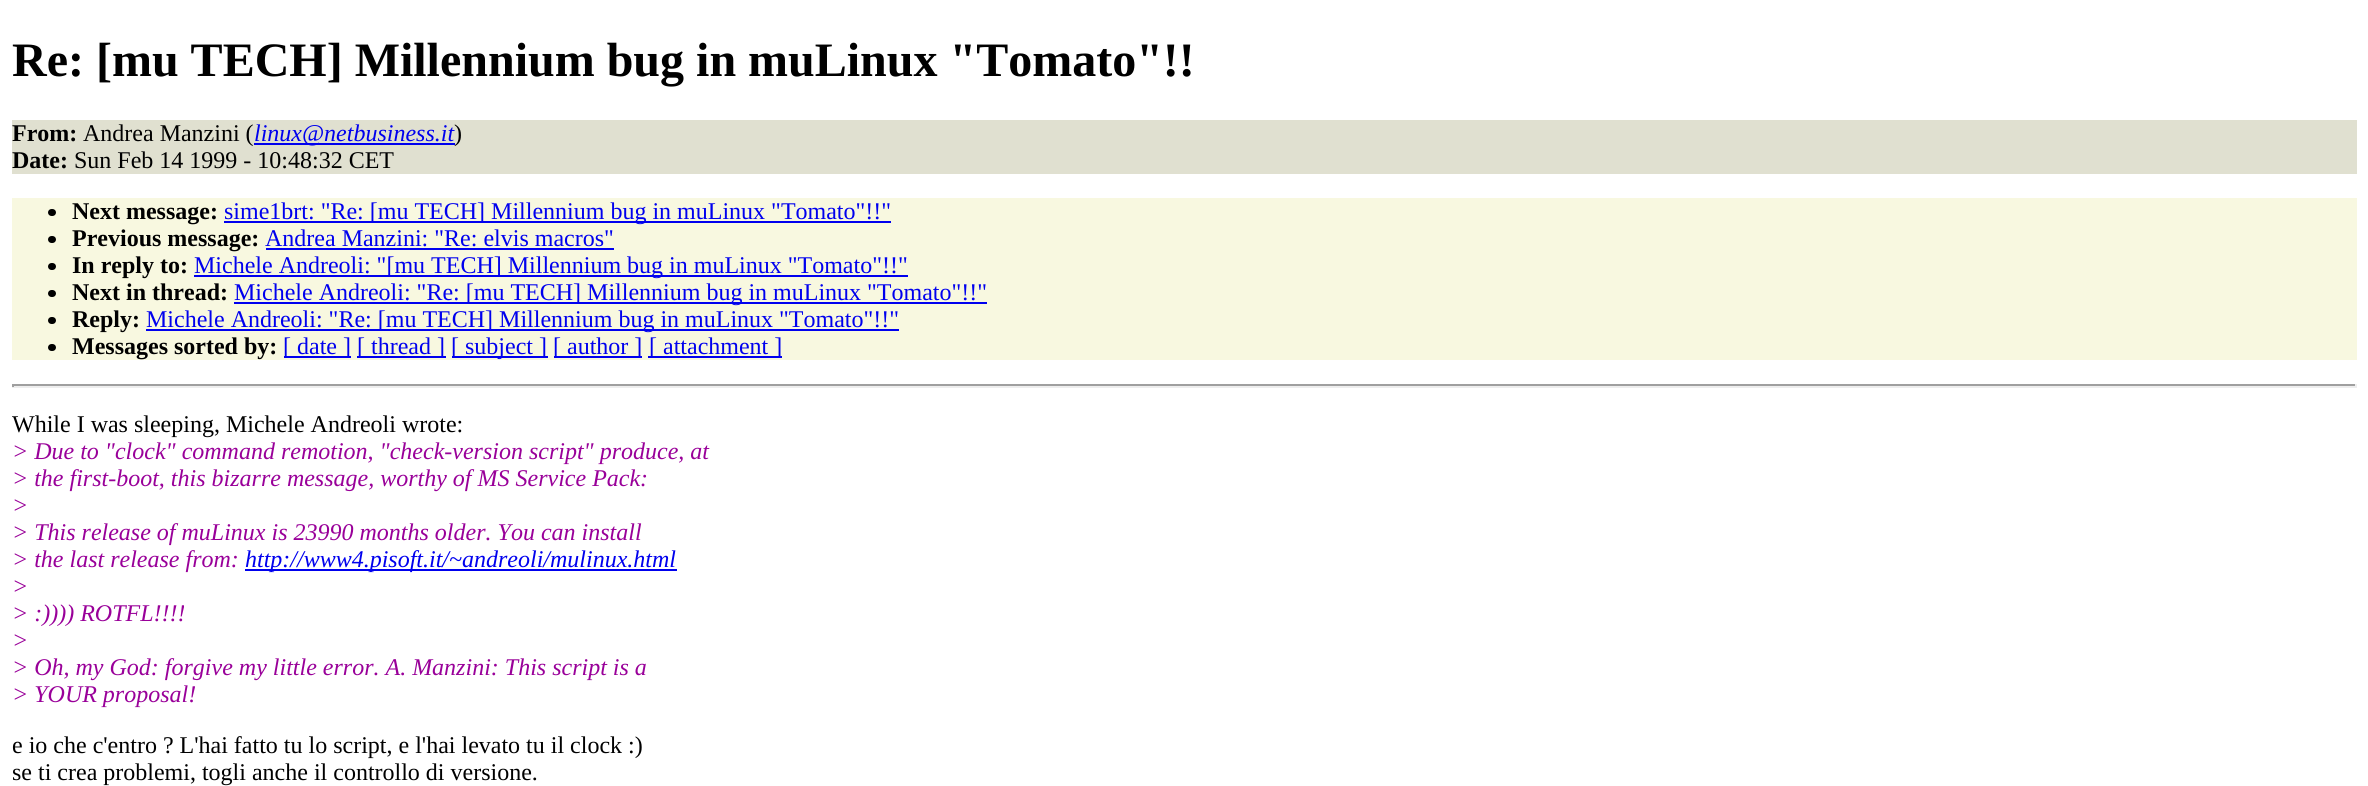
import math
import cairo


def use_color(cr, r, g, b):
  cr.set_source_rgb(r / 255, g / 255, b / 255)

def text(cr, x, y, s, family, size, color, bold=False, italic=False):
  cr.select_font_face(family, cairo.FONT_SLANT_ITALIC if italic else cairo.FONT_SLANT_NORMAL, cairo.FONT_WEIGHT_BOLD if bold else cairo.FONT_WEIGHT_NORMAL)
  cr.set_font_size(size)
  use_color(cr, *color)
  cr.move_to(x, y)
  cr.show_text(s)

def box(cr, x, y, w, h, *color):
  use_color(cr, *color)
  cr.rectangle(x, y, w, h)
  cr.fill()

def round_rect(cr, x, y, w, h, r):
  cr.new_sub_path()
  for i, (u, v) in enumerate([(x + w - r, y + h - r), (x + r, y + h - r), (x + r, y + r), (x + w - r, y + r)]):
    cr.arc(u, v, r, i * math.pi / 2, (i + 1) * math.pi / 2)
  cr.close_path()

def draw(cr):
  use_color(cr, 255, 255, 255)
  cr.paint()
  box(cr, 12, 120, 2345, 54, 224, 224, 208)
  box(cr, 254, 143, 201, 2, 0, 0, 238)
  box(cr, 12, 198, 2345, 162, 248, 248, 224)
  use_color(cr, 0, 0, 0)
  round_rect(cr, 48, 209, 8, 7, 3.5)
  cr.fill()
  box(cr, 224, 221, 667, 2, 0, 0, 238)
  use_color(cr, 0, 0, 0)
  round_rect(cr, 48, 236, 8, 7, 3.5)
  cr.fill()
  box(cr, 266, 248, 348, 2, 0, 0, 238)
  use_color(cr, 0, 0, 0)
  round_rect(cr, 48, 263, 8, 7, 3.5)
  cr.fill()
  box(cr, 194, 275, 714, 2, 0, 0, 238)
  use_color(cr, 0, 0, 0)
  round_rect(cr, 48, 290, 8, 7, 3.5)
  cr.fill()
  box(cr, 234, 302, 753, 2, 0, 0, 238)
  use_color(cr, 0, 0, 0)
  round_rect(cr, 48, 317, 8, 7, 3.5)
  cr.fill()
  box(cr, 146, 329, 753, 2, 0, 0, 238)
  use_color(cr, 0, 0, 0)
  round_rect(cr, 48, 344, 8, 7, 3.5)
  cr.fill()
  box(cr, 284, 356, 67, 2, 0, 0, 238)
  box(cr, 357, 356, 89, 2, 0, 0, 238)
  box(cr, 452, 356, 96, 2, 0, 0, 238)
  box(cr, 554, 356, 88, 2, 0, 0, 238)
  box(cr, 648, 356, 134, 2, 0, 0, 238)
  box(cr, 12, 384, 2345, 2, 159, 159, 159)
  box(cr, 2355, 384, 2, 3, 238, 238, 238)
  box(cr, 12, 386, 2345, 2, 238, 238, 238)
  box(cr, 12, 384, 2, 3, 159, 159, 159)
  box(cr, 245, 569, 432, 2, 0, 0, 238)
  text(cr, 12, 76, "Re: [mu TECH] Millennium bug in muLinux \"Tomato\"!!", "Liberation Serif", 48, (0, 0, 0), bold=True)
  text(cr, 12, 141, "From:", "Liberation Serif", 24, (0, 0, 0), bold=True)
  text(cr, 83, 141, "Andrea Manzini (", "Liberation Serif", 24, (0, 0, 0))
  text(cr, 254, 141, "linux@netbusiness.it", "Liberation Serif", 24, (0, 0, 238), italic=True)
  text(cr, 454, 141, ")", "Liberation Serif", 24, (0, 0, 0))
  text(cr, 12, 168, "Date:", "Liberation Serif", 24, (0, 0, 0), bold=True)
  text(cr, 74, 168, "Sun Feb 14 1999 - 10:48:32 CET", "Liberation Serif", 24, (0, 0, 0))
  text(cr, 72, 219, "Next message:", "Liberation Serif", 24, (0, 0, 0), bold=True)
  text(cr, 224, 219, "sime1brt: \"Re: [mu TECH] Millennium bug in muLinux \"Tomato\"!!\"", "Liberation Serif", 24, (0, 0, 238))
  text(cr, 72, 246, "Previous message:", "Liberation Serif", 24, (0, 0, 0), bold=True)
  text(cr, 265, 246, "Andrea Manzini: \"Re: elvis macros\"", "Liberation Serif", 24, (0, 0, 238))
  text(cr, 72, 273, "In reply to:", "Liberation Serif", 24, (0, 0, 0), bold=True)
  text(cr, 194, 273, "Michele Andreoli: \"[mu TECH] Millennium bug in muLinux \"Tomato\"!!\"", "Liberation Serif", 24, (0, 0, 238))
  text(cr, 72, 300, "Next in thread:", "Liberation Serif", 24, (0, 0, 0), bold=True)
  text(cr, 234, 300, "Michele Andreoli: \"Re: [mu TECH] Millennium bug in muLinux \"Tomato\"!!\"", "Liberation Serif", 24, (0, 0, 238))
  text(cr, 72, 327, "Reply:", "Liberation Serif", 24, (0, 0, 0), bold=True)
  text(cr, 146, 327, "Michele Andreoli: \"Re: [mu TECH] Millennium bug in muLinux \"Tomato\"!!\"", "Liberation Serif", 24, (0, 0, 238))
  text(cr, 72, 354, "Messages sorted by:", "Liberation Serif", 24, (0, 0, 0), bold=True)
  text(cr, 283, 354, "[ date ]", "Liberation Serif", 24, (0, 0, 238))
  text(cr, 357, 354, "[ thread ]", "Liberation Serif", 24, (0, 0, 238))
  text(cr, 451, 354, "[ subject ]", "Liberation Serif", 24, (0, 0, 238))
  text(cr, 553, 354, "[ author ]", "Liberation Serif", 24, (0, 0, 238))
  text(cr, 649, 354, "[ attachment ]", "Liberation Serif", 24, (0, 0, 238))
  text(cr, 12, 432, "While I was sleeping, Michele Andreoli wrote:", "Liberation Serif", 24, (0, 0, 0))
  text(cr, 12, 459, "> Due to \"clock\" command remotion, \"check-version script\" produce, at", "Liberation Serif", 24, (153, 0, 153), italic=True)
  text(cr, 12, 486, "> the first-boot, this bizarre message, worthy of MS Service Pack:", "Liberation Serif", 24, (153, 0, 153), italic=True)
  text(cr, 12, 513, ">", "Liberation Serif", 24, (153, 0, 153), italic=True)
  text(cr, 12, 540, "> This release of muLinux is 23990 months older. You can install", "Liberation Serif", 24, (153, 0, 153), italic=True)
  text(cr, 12, 567, "> the last release from:", "Liberation Serif", 24, (153, 0, 153), italic=True)
  text(cr, 245, 567, "http://www4.pisoft.it/~andreoli/mulinux.html", "Liberation Serif", 24, (0, 0, 238), italic=True)
  text(cr, 12, 594, ">", "Liberation Serif", 24, (153, 0, 153), italic=True)
  text(cr, 12, 621, "> :)))) ROTFL!!!!", "Liberation Serif", 24, (153, 0, 153), italic=True)
  text(cr, 12, 648, ">", "Liberation Serif", 24, (153, 0, 153), italic=True)
  text(cr, 12, 675, "> Oh, my God: forgive my little error. A. Manzini: This script is a", "Liberation Serif", 24, (153, 0, 153), italic=True)
  text(cr, 12, 702, "> YOUR proposal!", "Liberation Serif", 24, (153, 0, 153), italic=True)
  text(cr, 12, 753, "e io che c'entro ? L'hai fatto tu lo script, e l'hai levato tu il clock :)", "Liberation Serif", 24, (0, 0, 0))
  text(cr, 12, 780, "se ti crea problemi, togli anche il controllo di versione.", "Liberation Serif", 24, (0, 0, 0))


surface = cairo.ImageSurface(cairo.FORMAT_RGB24, 2368, 786)
cr = cairo.Context(surface)
options = cairo.FontOptions()
options.set_hint_metrics(cairo.HINT_METRICS_OFF)
options.set_hint_style(cairo.HINT_STYLE_NONE)
cr.set_font_options(options)
cr.set_miter_limit(4)
draw(cr)
surface.write_to_png("out.png")
